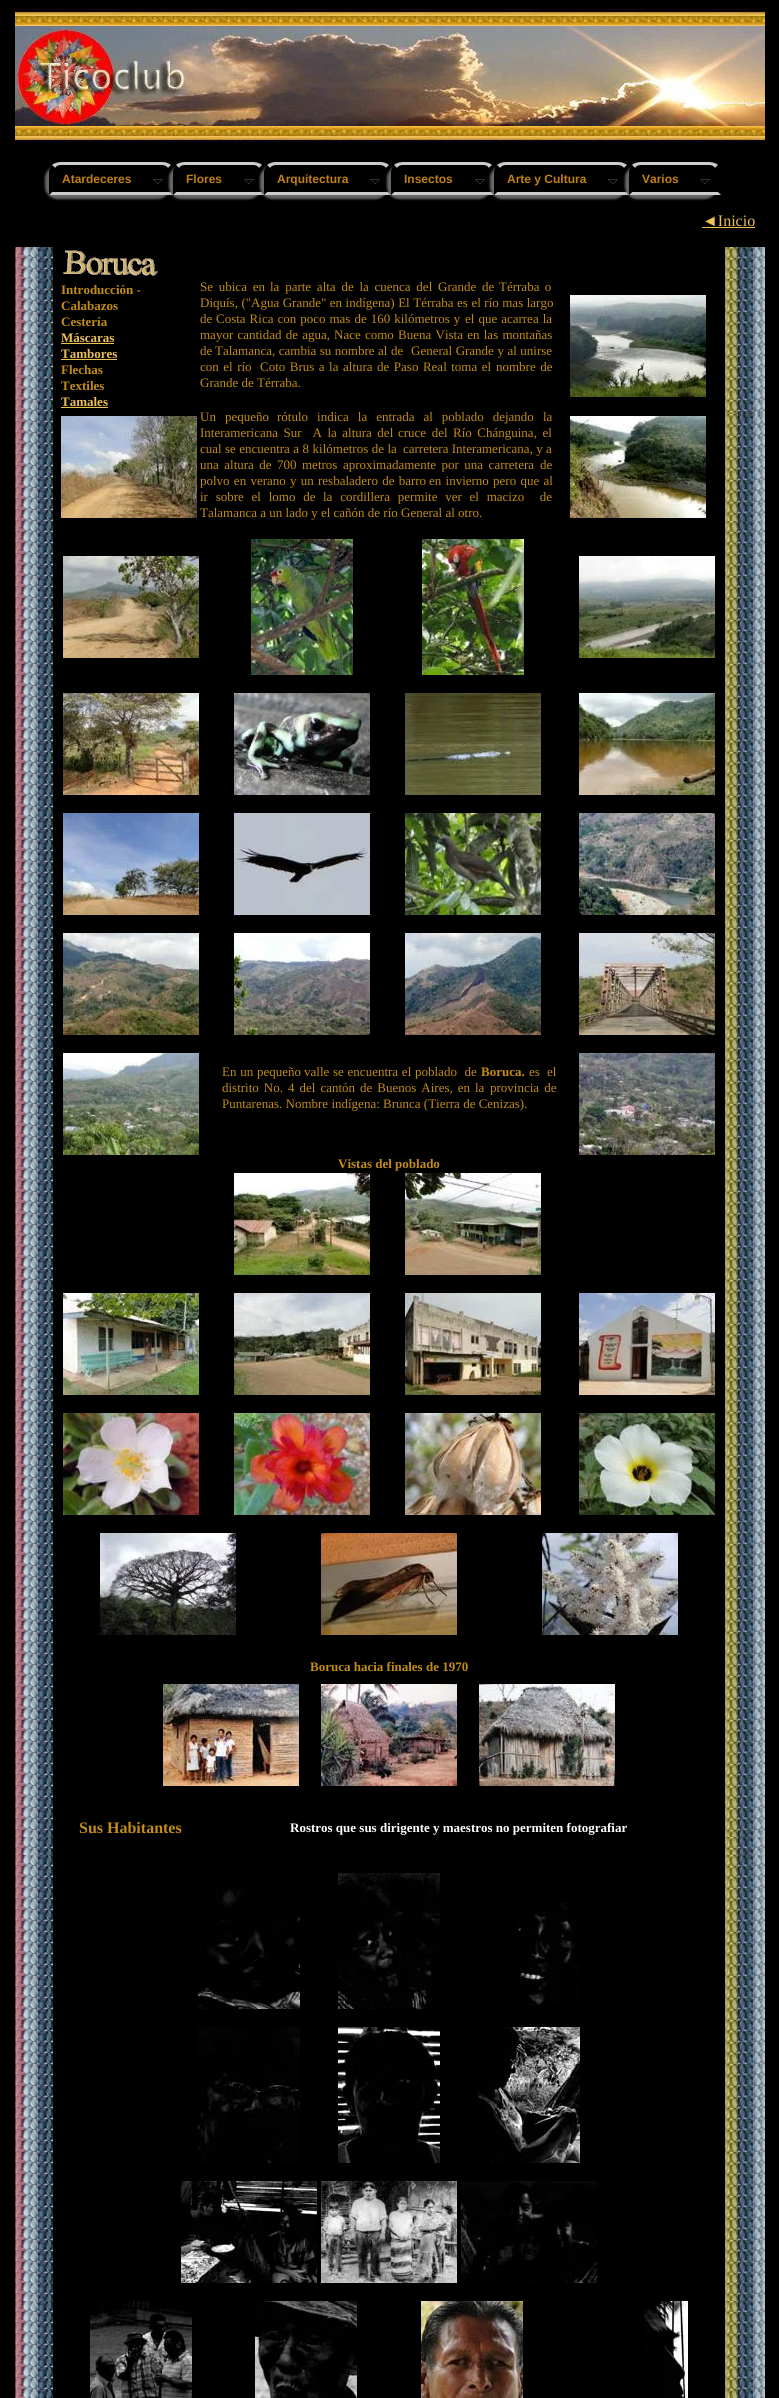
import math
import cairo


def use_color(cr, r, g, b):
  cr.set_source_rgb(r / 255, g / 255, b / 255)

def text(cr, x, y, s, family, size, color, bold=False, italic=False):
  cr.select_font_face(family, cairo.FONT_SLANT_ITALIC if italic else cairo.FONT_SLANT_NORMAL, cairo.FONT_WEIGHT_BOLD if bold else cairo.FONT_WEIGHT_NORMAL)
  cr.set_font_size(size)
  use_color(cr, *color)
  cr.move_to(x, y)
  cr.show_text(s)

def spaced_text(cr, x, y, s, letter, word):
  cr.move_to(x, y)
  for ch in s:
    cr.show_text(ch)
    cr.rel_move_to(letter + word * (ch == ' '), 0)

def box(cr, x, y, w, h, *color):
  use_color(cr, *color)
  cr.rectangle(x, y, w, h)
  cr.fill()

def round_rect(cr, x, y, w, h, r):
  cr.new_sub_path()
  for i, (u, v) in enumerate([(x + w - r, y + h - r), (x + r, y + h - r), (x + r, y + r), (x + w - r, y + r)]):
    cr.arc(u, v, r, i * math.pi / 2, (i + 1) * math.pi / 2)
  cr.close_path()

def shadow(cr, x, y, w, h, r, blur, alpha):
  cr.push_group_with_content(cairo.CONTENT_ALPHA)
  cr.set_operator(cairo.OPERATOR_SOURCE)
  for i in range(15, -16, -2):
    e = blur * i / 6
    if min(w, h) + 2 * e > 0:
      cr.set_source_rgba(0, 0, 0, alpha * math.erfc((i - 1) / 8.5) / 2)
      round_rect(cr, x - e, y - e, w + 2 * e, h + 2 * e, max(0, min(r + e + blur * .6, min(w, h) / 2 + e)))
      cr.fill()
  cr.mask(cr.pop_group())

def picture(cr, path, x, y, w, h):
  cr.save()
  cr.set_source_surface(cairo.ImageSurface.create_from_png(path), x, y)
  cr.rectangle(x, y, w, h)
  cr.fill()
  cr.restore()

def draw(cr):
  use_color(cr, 0, 0, 0)
  cr.paint()
  picture(cr, "img_01.png", 15, 8, 750, 18)
  picture(cr, "img_02.png", 15, 26, 750, 100)
  picture(cr, "img_03.png", 15, 126, 750, 16)
  use_color(cr, 102, 102, 102)
  shadow(cr, 45, 166, 125, 33, 12, 1, 1)
  use_color(cr, 0, 0, 0)
  cr.new_path()
  cr.move_to(61, 162)
  cr.line_to(162, 162)
  cr.curve_to(168.5, 162, 174, 167.5, 174, 174)
  cr.line_to(174, 195)
  cr.line_to(49, 195)
  cr.line_to(49, 174)
  cr.curve_to(49, 167.5, 54.5, 162, 61, 162)
  cr.close_path()
  cr.fill()
  use_color(cr, 204, 204, 204)
  cr.new_path()
  cr.move_to(61, 162)
  cr.curve_to(58, 162, 54, 163, 52, 165)
  cr.line_to(55, 168)
  cr.curve_to(56, 166, 58, 165, 61, 165)
  cr.line_to(162, 165)
  cr.curve_to(164, 165, 167, 166, 168, 168)
  cr.line_to(171, 165)
  cr.curve_to(168, 163, 166, 162, 162, 162)
  cr.close_path()
  cr.fill()
  use_color(cr, 0, 0, 0)
  cr.new_path()
  cr.move_to(174, 195)
  cr.line_to(174, 174)
  cr.curve_to(174, 170.5, 173, 167.5, 170.5, 165.5)
  cr.line_to(168.5, 167.5)
  cr.curve_to(170, 169, 171, 171.5, 171, 174)
  cr.line_to(171, 192)
  cr.close_path()
  cr.fill()
  use_color(cr, 204, 204, 204)
  cr.new_path()
  cr.move_to(174, 195)
  cr.line_to(171, 192)
  cr.line_to(52, 192)
  cr.line_to(49, 195)
  cr.close_path()
  cr.fill()
  use_color(cr, 0, 0, 0)
  cr.new_path()
  cr.move_to(49, 195)
  cr.line_to(52, 192)
  cr.line_to(52, 174)
  cr.curve_to(52, 171.5, 53, 169, 54.5, 167.5)
  cr.line_to(52.5, 165.5)
  cr.curve_to(50, 167.5, 49, 170.5, 49, 174)
  cr.close_path()
  cr.fill()
  box(cr, 153, 179, 10, 1, 49, 49, 49)
  box(cr, 161, 180, 1, 1, 49, 49, 49)
  box(cr, 154, 180, 1, 1, 49, 49, 49)
  box(cr, 160, 181, 1, 1, 49, 49, 49)
  box(cr, 155, 181, 1, 1, 49, 49, 49)
  box(cr, 159, 182, 1, 1, 49, 49, 49)
  box(cr, 156, 182, 1, 1, 49, 49, 49)
  box(cr, 157, 183, 2, 1, 49, 49, 49)
  use_color(cr, 102, 102, 102)
  shadow(cr, 169, 166, 92, 33, 12, 1, 1)
  use_color(cr, 0, 0, 0)
  cr.new_path()
  cr.move_to(185, 162)
  cr.line_to(253, 162)
  cr.curve_to(259.5, 162, 265, 167.5, 265, 174)
  cr.line_to(265, 195)
  cr.line_to(173, 195)
  cr.line_to(173, 174)
  cr.curve_to(173, 167.5, 178.5, 162, 185, 162)
  cr.close_path()
  cr.fill()
  use_color(cr, 204, 204, 204)
  cr.new_path()
  cr.move_to(185, 162)
  cr.curve_to(182, 162, 178, 163, 176, 165)
  cr.line_to(179, 168)
  cr.curve_to(180, 166, 182, 165, 185, 165)
  cr.line_to(253, 165)
  cr.curve_to(256, 165, 258, 166, 259, 168)
  cr.line_to(262, 165)
  cr.curve_to(260, 163, 256, 162, 253, 162)
  cr.close_path()
  cr.fill()
  use_color(cr, 0, 0, 0)
  cr.new_path()
  cr.move_to(265, 195)
  cr.line_to(265, 174)
  cr.curve_to(265, 170.5, 264, 167.5, 261.5, 165.5)
  cr.line_to(259.5, 167.5)
  cr.curve_to(261, 169, 262, 171.5, 262, 174)
  cr.line_to(262, 192)
  cr.close_path()
  cr.fill()
  use_color(cr, 204, 204, 204)
  cr.new_path()
  cr.move_to(265, 195)
  cr.line_to(262, 192)
  cr.line_to(176, 192)
  cr.line_to(173, 195)
  cr.close_path()
  cr.fill()
  use_color(cr, 0, 0, 0)
  cr.new_path()
  cr.move_to(173, 195)
  cr.line_to(176, 192)
  cr.line_to(176, 174)
  cr.curve_to(176, 171.5, 177, 169, 178.5, 167.5)
  cr.line_to(176.5, 165.5)
  cr.curve_to(174, 167.5, 173, 170.5, 173, 174)
  cr.close_path()
  cr.fill()
  box(cr, 244, 179, 10, 1, 49, 49, 49)
  box(cr, 252, 180, 1, 1, 49, 49, 49)
  box(cr, 245, 180, 1, 1, 49, 49, 49)
  box(cr, 251, 181, 1, 1, 49, 49, 49)
  box(cr, 246, 181, 1, 1, 49, 49, 49)
  box(cr, 250, 182, 1, 1, 49, 49, 49)
  box(cr, 247, 182, 1, 1, 49, 49, 49)
  box(cr, 248, 183, 2, 1, 49, 49, 49)
  use_color(cr, 102, 102, 102)
  shadow(cr, 260, 166, 128, 33, 12, 1, 1)
  use_color(cr, 0, 0, 0)
  cr.new_path()
  cr.move_to(276, 162)
  cr.line_to(380, 162)
  cr.curve_to(386.5, 162, 392, 167.5, 392, 174)
  cr.line_to(392, 195)
  cr.line_to(264, 195)
  cr.line_to(264, 174)
  cr.curve_to(264, 167.5, 269.5, 162, 276, 162)
  cr.close_path()
  cr.fill()
  use_color(cr, 204, 204, 204)
  cr.new_path()
  cr.move_to(276, 162)
  cr.curve_to(272, 162, 270, 163, 267, 165)
  cr.line_to(270, 168)
  cr.curve_to(271, 166, 274, 165, 276, 165)
  cr.line_to(380, 165)
  cr.curve_to(382, 165, 385, 166, 386, 168)
  cr.line_to(389, 165)
  cr.curve_to(386, 163, 384, 162, 380, 162)
  cr.close_path()
  cr.fill()
  use_color(cr, 0, 0, 0)
  cr.new_path()
  cr.move_to(392, 195)
  cr.line_to(392, 174)
  cr.curve_to(392, 170.5, 391, 167.5, 388.5, 165.5)
  cr.line_to(386.5, 167.5)
  cr.curve_to(388, 169, 389, 171.5, 389, 174)
  cr.line_to(389, 192)
  cr.close_path()
  cr.fill()
  use_color(cr, 204, 204, 204)
  cr.new_path()
  cr.move_to(392, 195)
  cr.line_to(389, 192)
  cr.line_to(267, 192)
  cr.line_to(264, 195)
  cr.close_path()
  cr.fill()
  use_color(cr, 0, 0, 0)
  cr.new_path()
  cr.move_to(264, 195)
  cr.line_to(267, 192)
  cr.line_to(267, 174)
  cr.curve_to(267, 171.5, 268, 169, 269.5, 167.5)
  cr.line_to(267.5, 165.5)
  cr.curve_to(265, 167.5, 264, 170.5, 264, 174)
  cr.close_path()
  cr.fill()
  box(cr, 370, 179, 10, 1, 49, 49, 49)
  box(cr, 378, 180, 1, 1, 49, 49, 49)
  box(cr, 371, 180, 1, 1, 49, 49, 49)
  box(cr, 377, 181, 1, 1, 49, 49, 49)
  box(cr, 372, 181, 1, 1, 49, 49, 49)
  box(cr, 376, 182, 1, 1, 49, 49, 49)
  box(cr, 373, 182, 1, 1, 49, 49, 49)
  box(cr, 374, 183, 2, 1, 49, 49, 49)
  use_color(cr, 102, 102, 102)
  shadow(cr, 387, 166, 104, 33, 12, 1, 1)
  use_color(cr, 0, 0, 0)
  cr.new_path()
  cr.move_to(403, 162)
  cr.line_to(483, 162)
  cr.curve_to(489.5, 162, 495, 167.5, 495, 174)
  cr.line_to(495, 195)
  cr.line_to(391, 195)
  cr.line_to(391, 174)
  cr.curve_to(391, 167.5, 396.5, 162, 403, 162)
  cr.close_path()
  cr.fill()
  use_color(cr, 204, 204, 204)
  cr.new_path()
  cr.move_to(403, 162)
  cr.curve_to(400, 162, 396, 163, 394, 165)
  cr.line_to(397, 168)
  cr.curve_to(398, 166, 400, 165, 403, 165)
  cr.line_to(483, 165)
  cr.curve_to(486, 165, 488, 166, 489, 168)
  cr.line_to(492, 165)
  cr.curve_to(490, 163, 486, 162, 483, 162)
  cr.close_path()
  cr.fill()
  use_color(cr, 0, 0, 0)
  cr.new_path()
  cr.move_to(495, 195)
  cr.line_to(495, 174)
  cr.curve_to(495, 170.5, 494, 167.5, 491.5, 165.5)
  cr.line_to(489.5, 167.5)
  cr.curve_to(491, 169, 492, 171.5, 492, 174)
  cr.line_to(492, 192)
  cr.close_path()
  cr.fill()
  use_color(cr, 204, 204, 204)
  cr.new_path()
  cr.move_to(495, 195)
  cr.line_to(492, 192)
  cr.line_to(394, 192)
  cr.line_to(391, 195)
  cr.close_path()
  cr.fill()
  use_color(cr, 0, 0, 0)
  cr.new_path()
  cr.move_to(391, 195)
  cr.line_to(394, 192)
  cr.line_to(394, 174)
  cr.curve_to(394, 171.5, 395, 169, 396.5, 167.5)
  cr.line_to(394.5, 165.5)
  cr.curve_to(392, 167.5, 391, 170.5, 391, 174)
  cr.close_path()
  cr.fill()
  box(cr, 475, 179, 10, 1, 49, 49, 49)
  box(cr, 483, 180, 1, 1, 49, 49, 49)
  box(cr, 476, 180, 1, 1, 49, 49, 49)
  box(cr, 482, 181, 1, 1, 49, 49, 49)
  box(cr, 477, 181, 1, 1, 49, 49, 49)
  box(cr, 481, 182, 1, 1, 49, 49, 49)
  box(cr, 478, 182, 1, 1, 49, 49, 49)
  box(cr, 479, 183, 2, 1, 49, 49, 49)
  use_color(cr, 102, 102, 102)
  shadow(cr, 490, 166, 136, 33, 12, 1, 1)
  use_color(cr, 0, 0, 0)
  cr.new_path()
  cr.move_to(506, 162)
  cr.line_to(618, 162)
  cr.curve_to(624.5, 162, 630, 167.5, 630, 174)
  cr.line_to(630, 195)
  cr.line_to(494, 195)
  cr.line_to(494, 174)
  cr.curve_to(494, 167.5, 499.5, 162, 506, 162)
  cr.close_path()
  cr.fill()
  use_color(cr, 204, 204, 204)
  cr.new_path()
  cr.move_to(506, 162)
  cr.curve_to(502, 162, 500, 163, 497, 165)
  cr.line_to(500, 168)
  cr.curve_to(501, 166, 504, 165, 506, 165)
  cr.line_to(618, 165)
  cr.curve_to(620, 165, 623, 166, 624, 168)
  cr.line_to(627, 165)
  cr.curve_to(624, 163, 622, 162, 618, 162)
  cr.close_path()
  cr.fill()
  use_color(cr, 0, 0, 0)
  cr.new_path()
  cr.move_to(630, 195)
  cr.line_to(630, 174)
  cr.curve_to(630, 170.5, 629, 167.5, 626.5, 165.5)
  cr.line_to(624.5, 167.5)
  cr.curve_to(626, 169, 627, 171.5, 627, 174)
  cr.line_to(627, 192)
  cr.close_path()
  cr.fill()
  use_color(cr, 204, 204, 204)
  cr.new_path()
  cr.move_to(630, 195)
  cr.line_to(627, 192)
  cr.line_to(497, 192)
  cr.line_to(494, 195)
  cr.close_path()
  cr.fill()
  use_color(cr, 0, 0, 0)
  cr.new_path()
  cr.move_to(494, 195)
  cr.line_to(497, 192)
  cr.line_to(497, 174)
  cr.curve_to(497, 171.5, 498, 169, 499.5, 167.5)
  cr.line_to(497.5, 165.5)
  cr.curve_to(495, 167.5, 494, 170.5, 494, 174)
  cr.close_path()
  cr.fill()
  box(cr, 608, 179, 10, 1, 49, 49, 49)
  box(cr, 616, 180, 1, 1, 49, 49, 49)
  box(cr, 609, 180, 1, 1, 49, 49, 49)
  box(cr, 615, 181, 1, 1, 49, 49, 49)
  box(cr, 610, 181, 1, 1, 49, 49, 49)
  box(cr, 614, 182, 1, 1, 49, 49, 49)
  box(cr, 611, 182, 1, 1, 49, 49, 49)
  box(cr, 612, 183, 2, 1, 49, 49, 49)
  use_color(cr, 102, 102, 102)
  shadow(cr, 625, 166, 92, 33, 12, 1, 1)
  use_color(cr, 0, 0, 0)
  cr.new_path()
  cr.move_to(641, 162)
  cr.line_to(709, 162)
  cr.curve_to(715.5, 162, 721, 167.5, 721, 174)
  cr.line_to(721, 195)
  cr.line_to(629, 195)
  cr.line_to(629, 174)
  cr.curve_to(629, 167.5, 634.5, 162, 641, 162)
  cr.close_path()
  cr.fill()
  use_color(cr, 204, 204, 204)
  cr.new_path()
  cr.move_to(641, 162)
  cr.curve_to(638, 162, 634, 163, 632, 165)
  cr.line_to(635, 168)
  cr.curve_to(636, 166, 638, 165, 641, 165)
  cr.line_to(709, 165)
  cr.curve_to(712, 165, 714, 166, 715, 168)
  cr.line_to(718, 165)
  cr.curve_to(716, 163, 712, 162, 709, 162)
  cr.close_path()
  cr.fill()
  use_color(cr, 0, 0, 0)
  cr.new_path()
  cr.move_to(721, 195)
  cr.line_to(721, 174)
  cr.curve_to(721, 170.5, 720, 167.5, 717.5, 165.5)
  cr.line_to(715.5, 167.5)
  cr.curve_to(717, 169, 718, 171.5, 718, 174)
  cr.line_to(718, 192)
  cr.close_path()
  cr.fill()
  use_color(cr, 204, 204, 204)
  cr.new_path()
  cr.move_to(721, 195)
  cr.line_to(718, 192)
  cr.line_to(632, 192)
  cr.line_to(629, 195)
  cr.close_path()
  cr.fill()
  use_color(cr, 0, 0, 0)
  cr.new_path()
  cr.move_to(629, 195)
  cr.line_to(632, 192)
  cr.line_to(632, 174)
  cr.curve_to(632, 171.5, 633, 169, 634.5, 167.5)
  cr.line_to(632.5, 165.5)
  cr.curve_to(630, 167.5, 629, 170.5, 629, 174)
  cr.close_path()
  cr.fill()
  box(cr, 700, 179, 10, 1, 49, 49, 49)
  box(cr, 708, 180, 1, 1, 49, 49, 49)
  box(cr, 701, 180, 1, 1, 49, 49, 49)
  box(cr, 707, 181, 1, 1, 49, 49, 49)
  box(cr, 702, 181, 1, 1, 49, 49, 49)
  box(cr, 706, 182, 1, 1, 49, 49, 49)
  box(cr, 703, 182, 1, 1, 49, 49, 49)
  box(cr, 704, 183, 2, 1, 49, 49, 49)
  box(cr, 702, 227, 53, 1, 237, 192, 88)
  picture(cr, "img_04.png", 15, 247, 38, 32)
  picture(cr, "img_05.png", 63, 250, 95, 26)
  picture(cr, "img_06.png", 725, 247, 40, 32)
  picture(cr, "img_07.png", 15, 279, 38, 242)
  box(cr, 61, 343, 53, 1, 237, 192, 88)
  box(cr, 61, 359, 56, 1, 237, 192, 88)
  box(cr, 61, 407, 47, 1, 237, 192, 88)
  picture(cr, "img_08.png", 570, 295, 136, 102)
  picture(cr, "img_09.png", 725, 279, 40, 135)
  picture(cr, "img_10.png", 61, 416, 136, 102)
  picture(cr, "img_11.png", 570, 416, 136, 102)
  picture(cr, "img_12.png", 725, 414, 40, 107)
  picture(cr, "img_13.png", 15, 521, 38, 1298)
  picture(cr, "img_14.png", 63, 556, 136, 102)
  picture(cr, "img_15.png", 251, 539, 102, 136)
  picture(cr, "img_16.png", 422, 539, 102, 136)
  picture(cr, "img_17.png", 579, 556, 136, 102)
  picture(cr, "img_18.png", 63, 693, 136, 102)
  picture(cr, "img_19.png", 234, 693, 136, 102)
  picture(cr, "img_20.png", 405, 693, 136, 102)
  picture(cr, "img_21.png", 579, 693, 136, 102)
  picture(cr, "img_22.png", 63, 813, 136, 102)
  picture(cr, "img_23.png", 234, 813, 136, 102)
  picture(cr, "img_24.png", 405, 813, 136, 102)
  picture(cr, "img_25.png", 579, 813, 136, 102)
  picture(cr, "img_26.png", 63, 933, 136, 102)
  picture(cr, "img_27.png", 234, 933, 136, 102)
  picture(cr, "img_28.png", 405, 933, 136, 102)
  picture(cr, "img_29.png", 579, 933, 136, 102)
  picture(cr, "img_30.png", 63, 1053, 136, 102)
  picture(cr, "img_31.png", 579, 1053, 136, 102)
  picture(cr, "img_32.png", 234, 1173, 136, 102)
  picture(cr, "img_33.png", 405, 1173, 136, 102)
  picture(cr, "img_34.png", 63, 1293, 136, 102)
  picture(cr, "img_35.png", 234, 1293, 136, 102)
  picture(cr, "img_36.png", 405, 1293, 136, 102)
  picture(cr, "img_37.png", 579, 1293, 136, 102)
  picture(cr, "img_38.png", 63, 1413, 136, 102)
  picture(cr, "img_39.png", 234, 1413, 136, 102)
  picture(cr, "img_40.png", 405, 1413, 136, 102)
  picture(cr, "img_41.png", 579, 1413, 136, 102)
  picture(cr, "img_42.png", 100, 1533, 136, 102)
  picture(cr, "img_43.png", 321, 1533, 136, 102)
  picture(cr, "img_44.png", 542, 1533, 136, 102)
  picture(cr, "img_45.png", 163, 1684, 136, 102)
  picture(cr, "img_46.png", 321, 1684, 136, 102)
  picture(cr, "img_47.png", 479, 1684, 136, 102)
  picture(cr, "img_48.png", 725, 521, 40, 1298)
  picture(cr, "img_49.png", 15, 1819, 38, 18)
  picture(cr, "img_50.png", 725, 1819, 40, 18)
  picture(cr, "img_49.png", 15, 1837, 38, 18)
  picture(cr, "img_50.png", 725, 1837, 40, 18)
  picture(cr, "img_51.png", 15, 1855, 38, 428)
  picture(cr, "img_52.png", 198, 1887, 102, 122)
  picture(cr, "img_53.png", 338, 1873, 102, 136)
  picture(cr, "img_54.png", 518, 1902, 62, 103)
  picture(cr, "img_55.png", 198, 2027, 102, 136)
  picture(cr, "img_56.png", 338, 2027, 102, 136)
  picture(cr, "img_57.png", 478, 2027, 102, 136)
  picture(cr, "img_58.png", 181, 2181, 136, 102)
  picture(cr, "img_59.png", 321, 2181, 136, 102)
  picture(cr, "img_60.png", 461, 2181, 136, 102)
  picture(cr, "img_61.png", 725, 1855, 40, 428)
  picture(cr, "img_49.png", 15, 2283, 38, 18)
  picture(cr, "img_50.png", 725, 2283, 40, 18)
  picture(cr, "img_62.png", 15, 2301, 38, 97)
  picture(cr, "img_63.png", 90, 2301, 102, 97)
  picture(cr, "img_64.png", 255, 2301, 102, 97)
  picture(cr, "img_65.png", 421, 2301, 102, 97)
  picture(cr, "img_66.png", 643, 2301, 45, 97)
  picture(cr, "img_67.png", 725, 2301, 40, 97)
  text(cr, 62, 183, "Atardeceres", "Liberation Sans", 12, (193, 128, 21), bold=True)
  text(cr, 186, 183, "Flores", "Liberation Sans", 12, (193, 128, 21), bold=True)
  text(cr, 277, 183, "Arquitectura", "Liberation Sans", 12, (193, 128, 21), bold=True)
  text(cr, 404, 183, "Insectos", "Liberation Sans", 12, (193, 128, 21), bold=True)
  text(cr, 507, 183, "Arte y Cultura", "Liberation Sans", 12, (193, 128, 21), bold=True)
  text(cr, 642, 183, "Varios", "Liberation Sans", 12, (193, 128, 21), bold=True)
  text(cr, 702, 226, "◄Inicio", "Liberation Serif", 16, (237, 192, 88))
  text(cr, 61, 294, "Introducción -", "Liberation Serif", 13, (193, 141, 21), bold=True)
  text(cr, 61, 310, "Calabazos", "Liberation Serif", 13, (193, 141, 21), bold=True)
  text(cr, 61, 326, "Cestería", "Liberation Serif", 13, (193, 141, 21), bold=True)
  text(cr, 61, 342, "Máscaras", "Liberation Serif", 13, (237, 192, 88), bold=True)
  text(cr, 61, 358, "Tambores", "Liberation Serif", 13, (237, 192, 88), bold=True)
  text(cr, 61, 374, "Flechas", "Liberation Serif", 13, (193, 141, 21), bold=True)
  text(cr, 61, 390, "Textiles", "Liberation Serif", 13, (193, 141, 21), bold=True)
  text(cr, 61, 406, "Tamales", "Liberation Serif", 13, (237, 192, 88), bold=True)
  cr.select_font_face("Liberation Serif")
  use_color(cr, 193, 141, 21)
  spaced_text(cr, 200, 291, "Se ubica en", 0, 2.5)
  spaced_text(cr, 270, 291, "la parte alta de la cuenca del Grande de", 0, 2.5)
  spaced_text(cr, 499, 291, "Térraba o", 0, 2)
  spaced_text(cr, 200, 307, "Diquís, (\"Agua Grande\" en indígena) El Térraba es el río mas largo", 0, 0.25)
  text(cr, 200, 323, "de", "Liberation Serif", 13, (193, 141, 21))
  spaced_text(cr, 216, 323, "Costa Rica con poco mas de 160 kilómetros y", 0, 0.75)
  spaced_text(cr, 465, 323, "el que acarrea la", 0, 0.75)
  spaced_text(cr, 200, 339, "mayor cantidad de agua,", 0, 1)
  spaced_text(cr, 334, 339, "Nace como Buena Vista en las montañas", 0, 1)
  text(cr, 200, 355, "de", "Liberation Serif", 13, (193, 141, 21))
  spaced_text(cr, 215, 355, "Talamanca, cambia su nombre al de", 0, 0.25)
  spaced_text(cr, 411, 355, "General Grande y al unirse", 0, 0.25)
  spaced_text(cr, 200, 371, "con el río", 0, 1.25)
  spaced_text(cr, 260, 371, "Coto Brus a la altura de Paso Real toma el", 0, 1.25)
  spaced_text(cr, 496, 371, "nombre de", 0, 1.25)
  text(cr, 200, 387, "Grande de Térraba.", "Liberation Serif", 13, (193, 141, 21))
  spaced_text(cr, 200, 421, "Un pequeño", 0, 5.75)
  spaced_text(cr, 277, 421, "rótulo indica la entrada al poblado dejando", 0, 5.75)
  text(cr, 543, 421, "la", "Liberation Serif", 13, (193, 141, 21))
  spaced_text(cr, 200, 437, "Interamericana Sur  A la altura del", 0, 2.25)
  spaced_text(cr, 398, 437, "cruce del Río Chánguina, el", 0, 2.25)
  text(cr, 200, 453, "cual", "Liberation Serif", 13, (193, 141, 21))
  spaced_text(cr, 225, 453, "se encuentra a 8 kilómetros de la", 0, 0.25)
  text(cr, 403, 453, "carretera Interamericana, y a", "Liberation Serif", 13, (193, 141, 21))
  spaced_text(cr, 200, 469, "una altura de", 0, 2.25)
  spaced_text(cr, 277, 469, "700 metros aproximadamente por una carretera", 0, 2.25)
  text(cr, 540, 469, "de", "Liberation Serif", 13, (193, 141, 21))
  spaced_text(cr, 200, 485, "polvo en verano y un resbaladero de barro", 0, 1)
  spaced_text(cr, 429, 485, "en invierno pero que al", 0, 1)
  spaced_text(cr, 200, 501, "ir sobre el lomo de", 0, 4.5)
  spaced_text(cr, 323, 501, "la cordillera permite ver el macizo  de", 0, 4.5)
  text(cr, 200, 517, "Talamanca a un lado y el cañón de río General al otro.", "Liberation Serif", 13, (193, 141, 21))
  spaced_text(cr, 222, 1076, "En un pequeño", 0, 0.5)
  spaced_text(cr, 304, 1076, "valle se encuentra el poblado  de", 0, 0.5)
  text(cr, 481, 1076, "Boruca.", "Liberation Serif", 13, (193, 141, 21), bold=True)
  text(cr, 529, 1076, "es", "Liberation Serif", 13, (193, 141, 21))
  text(cr, 547, 1076, "el", "Liberation Serif", 13, (193, 141, 21))
  spaced_text(cr, 222, 1092, "distrito No.", 0, 1.75)
  spaced_text(cr, 288, 1092, "4 del cantón de Buenos Aires, en la", 0, 1.75)
  spaced_text(cr, 490, 1092, "provincia de", 0, 2)
  text(cr, 222, 1108, "Puntarenas. Nombre indígena: Brunca (Tierra de Cenizas).", "Liberation Serif", 13, (193, 141, 21))
  text(cr, 338, 1168, "Vistas del poblado", "Liberation Serif", 13, (193, 141, 21), bold=True)
  text(cr, 310, 1671, "Boruca hacia finales de 1970", "Liberation Serif", 13, (193, 141, 21), bold=True)
  text(cr, 79, 1833, "Sus Habitantes", "Liberation Serif", 16, (193, 141, 21), bold=True)
  text(cr, 290, 1832, "Rostros que sus dirigente y maestros no permiten fotografiar", "Liberation Serif", 13, (255, 255, 255), bold=True)


surface = cairo.ImageSurface(cairo.FORMAT_RGB24, 779, 2398)
cr = cairo.Context(surface)
options = cairo.FontOptions()
options.set_hint_metrics(cairo.HINT_METRICS_OFF)
options.set_hint_style(cairo.HINT_STYLE_NONE)
cr.set_font_options(options)
cr.set_miter_limit(4)
draw(cr)
surface.write_to_png("out.png")
